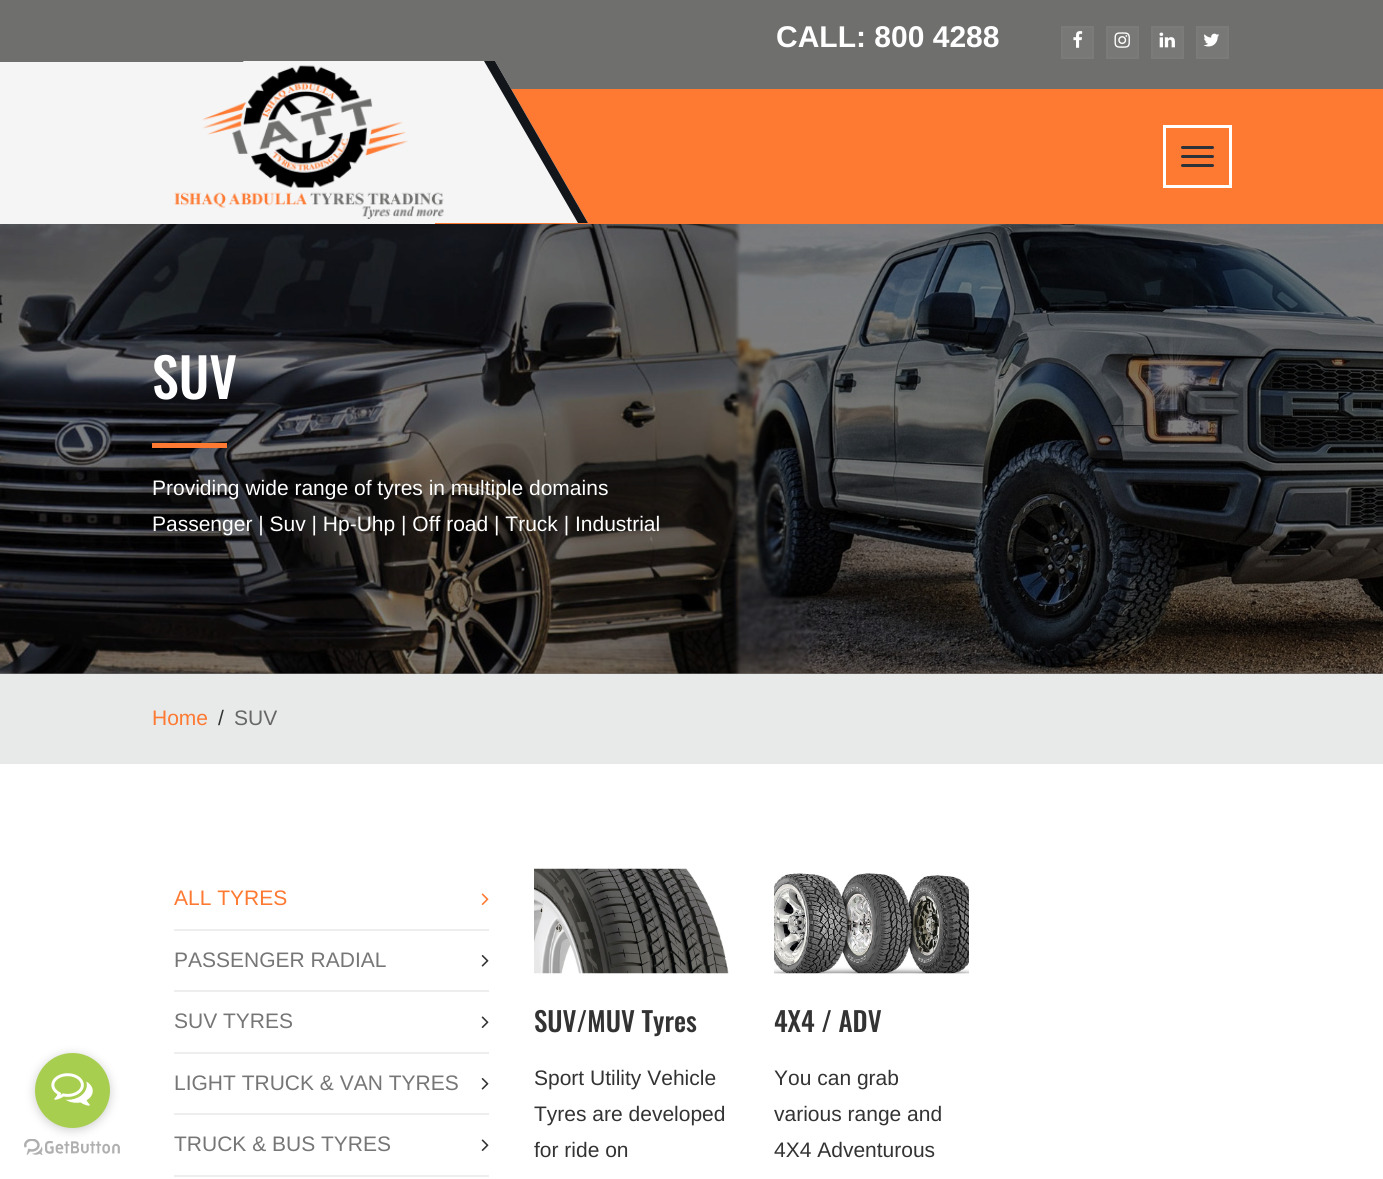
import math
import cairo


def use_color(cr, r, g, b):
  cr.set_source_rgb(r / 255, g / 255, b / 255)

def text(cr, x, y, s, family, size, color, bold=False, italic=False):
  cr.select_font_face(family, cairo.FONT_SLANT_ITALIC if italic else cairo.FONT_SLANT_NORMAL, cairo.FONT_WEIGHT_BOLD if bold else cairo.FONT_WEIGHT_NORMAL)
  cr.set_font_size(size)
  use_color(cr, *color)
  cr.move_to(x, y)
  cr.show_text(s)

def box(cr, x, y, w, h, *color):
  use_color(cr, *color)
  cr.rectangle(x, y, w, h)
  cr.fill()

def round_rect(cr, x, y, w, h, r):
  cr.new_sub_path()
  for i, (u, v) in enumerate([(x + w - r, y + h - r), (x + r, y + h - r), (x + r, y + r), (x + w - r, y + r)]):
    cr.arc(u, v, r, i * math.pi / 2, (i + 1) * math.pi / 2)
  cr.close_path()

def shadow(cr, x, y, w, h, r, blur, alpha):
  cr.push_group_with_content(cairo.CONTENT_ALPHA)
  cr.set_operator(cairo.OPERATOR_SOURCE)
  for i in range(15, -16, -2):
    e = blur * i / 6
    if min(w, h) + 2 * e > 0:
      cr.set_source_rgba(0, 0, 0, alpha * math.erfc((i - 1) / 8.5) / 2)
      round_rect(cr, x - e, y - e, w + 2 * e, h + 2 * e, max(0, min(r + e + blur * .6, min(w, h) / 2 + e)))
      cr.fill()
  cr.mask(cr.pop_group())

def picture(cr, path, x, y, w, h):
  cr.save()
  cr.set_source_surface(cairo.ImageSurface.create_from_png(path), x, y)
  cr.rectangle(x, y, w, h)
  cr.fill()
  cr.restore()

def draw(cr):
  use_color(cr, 124, 124, 125)
  cr.paint()
  box(cr, 0, 764, 1383, 415, 255, 255, 255)
  picture(cr, "img_02.png", 24, 1139, 96, 16)
  use_color(cr, 136, 136, 136)
  shadow(cr, 35, 1055, 75, 75, 37.5, 5, 0.4)
  use_color(cr, 168, 206, 80)
  cr.arc(72.5, 1090.5, 37.5, 0, 2 * math.pi)
  cr.fill()
  picture(cr, "img_01.png", 51, 1073, 42, 33)
  box(cr, 0, 0, 1383, 89, 111, 111, 110)
  use_color(cr, 120, 120, 119)
  cr.rectangle(1062, 27, 31, 31)
  cr.fill_preserve()
  use_color(cr, 123, 123, 122)
  cr.stroke()
  picture(cr, "img_03.png", 1073, 31, 10, 17)
  use_color(cr, 120, 120, 119)
  cr.rectangle(1107, 27, 31, 31)
  cr.fill_preserve()
  use_color(cr, 123, 123, 122)
  cr.stroke()
  picture(cr, "img_04.png", 1114, 32, 16, 16)
  use_color(cr, 120, 120, 119)
  cr.rectangle(1152, 27, 31, 31)
  cr.fill_preserve()
  use_color(cr, 123, 123, 122)
  cr.stroke()
  picture(cr, "img_05.png", 1159, 32, 16, 16)
  use_color(cr, 120, 120, 119)
  cr.rectangle(1197, 27, 31, 31)
  cr.fill_preserve()
  use_color(cr, 123, 123, 122)
  cr.stroke()
  picture(cr, "img_06.png", 1203, 33, 17, 14)
  box(cr, 435, 89, 948, 135, 254, 121, 49)
  use_color(cr, 245, 245, 245)
  cr.new_path()
  cr.move_to(243, 61)
  cr.line_to(495, 61)
  cr.line_to(588, 223)
  cr.line_to(336, 223)
  cr.close_path()
  cr.fill()
  use_color(cr, 18, 21, 26)
  cr.new_path()
  cr.move_to(484, 61)
  cr.line_to(495, 61)
  cr.line_to(588, 223)
  cr.line_to(578, 223)
  cr.close_path()
  cr.fill()
  box(cr, 0, 62, 435, 162, 245, 245, 245)
  picture(cr, "img_07.png", 174, 65, 270, 154)
  cr.rectangle(1164.5, 126.5, 66, 60)
  use_color(cr, 255, 255, 255)
  cr.set_line_width(3)
  cr.stroke()
  use_color(cr, 45, 50, 57)
  round_rect(cr, 1181, 146, 33, 3, 1.5)
  cr.fill()
  round_rect(cr, 1181, 155, 33, 3, 1.5)
  cr.fill()
  round_rect(cr, 1181, 164, 33, 3, 1.5)
  cr.fill()
  picture(cr, "img_08.png", 0, 224, 1383, 450)
  box(cr, 152, 443, 75, 5, 254, 121, 49)
  box(cr, 0, 674, 1383, 90, 232, 233, 233)
  box(cr, 174, 929, 315, 2, 238, 238, 238)
  picture(cr, "img_09.png", 481, 893, 8, 12)
  box(cr, 174, 990, 315, 2, 238, 238, 238)
  picture(cr, "img_10.png", 481, 955, 8, 12)
  box(cr, 174, 1052, 315, 2, 238, 238, 238)
  picture(cr, "img_11.png", 481, 1016, 8, 12)
  box(cr, 174, 1113, 315, 2, 238, 238, 238)
  picture(cr, "img_10.png", 481, 1078, 8, 12)
  box(cr, 174, 1175, 315, 2, 238, 238, 238)
  picture(cr, "img_11.png", 481, 1139, 8, 12)
  picture(cr, "img_12.png", 534, 868, 195, 106)
  picture(cr, "img_13.png", 774, 873, 195, 101)
  text(cr, 776, 47, "CALL: 800 4288", "Liberation Sans", 30, (255, 255, 255), bold=True)
  text(cr, 152, 399, "SUV", "Oswald Medium", 54, (255, 255, 255))
  text(cr, 152, 495, "Providing wide range of tyres in multiple domains", "Liberation Sans", 21, (255, 255, 255))
  text(cr, 152, 531, "Passenger | Suv | Hp-Uhp | Off road | Truck | Industrial", "Liberation Sans", 21, (255, 255, 255))
  text(cr, 152, 725, "Home", "Liberation Sans", 21, (254, 121, 49))
  text(cr, 218, 725, "/", "Liberation Sans", 21, (51, 51, 51))
  text(cr, 234, 725, "SUV", "Liberation Sans", 21, (103, 103, 103))
  text(cr, 174, 905, "ALL TYRES", "Liberation Sans", 21, (254, 121, 49))
  text(cr, 174, 967, "PASSENGER RADIAL", "Liberation Sans", 21, (118, 118, 118))
  text(cr, 174, 1028, "SUV TYRES", "Liberation Sans", 21, (118, 118, 118))
  text(cr, 174, 1090, "LIGHT TRUCK & VAN TYRES", "Liberation Sans", 21, (118, 118, 118))
  text(cr, 174, 1151, "TRUCK & BUS TYRES", "Liberation Sans", 21, (118, 118, 118))
  text(cr, 534, 1032, "SUV/MUV Tyres", "Oswald Medium", 27, (51, 51, 51))
  text(cr, 534, 1085, "Sport Utility Vehicle", "Liberation Sans", 21, (51, 51, 51))
  text(cr, 534, 1121, "Tyres are developed", "Liberation Sans", 21, (51, 51, 51))
  text(cr, 534, 1157, "for ride on", "Liberation Sans", 21, (51, 51, 51))
  text(cr, 774, 1032, "4X4 / ADV", "Oswald Medium", 27, (51, 51, 51))
  text(cr, 774, 1085, "You can grab", "Liberation Sans", 21, (51, 51, 51))
  text(cr, 774, 1121, "various range and", "Liberation Sans", 21, (51, 51, 51))
  text(cr, 774, 1157, "4X4 Adventurous", "Liberation Sans", 21, (51, 51, 51))


surface = cairo.ImageSurface(cairo.FORMAT_RGB24, 1383, 1179)
cr = cairo.Context(surface)
options = cairo.FontOptions()
options.set_hint_metrics(cairo.HINT_METRICS_OFF)
options.set_hint_style(cairo.HINT_STYLE_NONE)
cr.set_font_options(options)
cr.set_miter_limit(4)
draw(cr)
surface.write_to_png("out.png")
